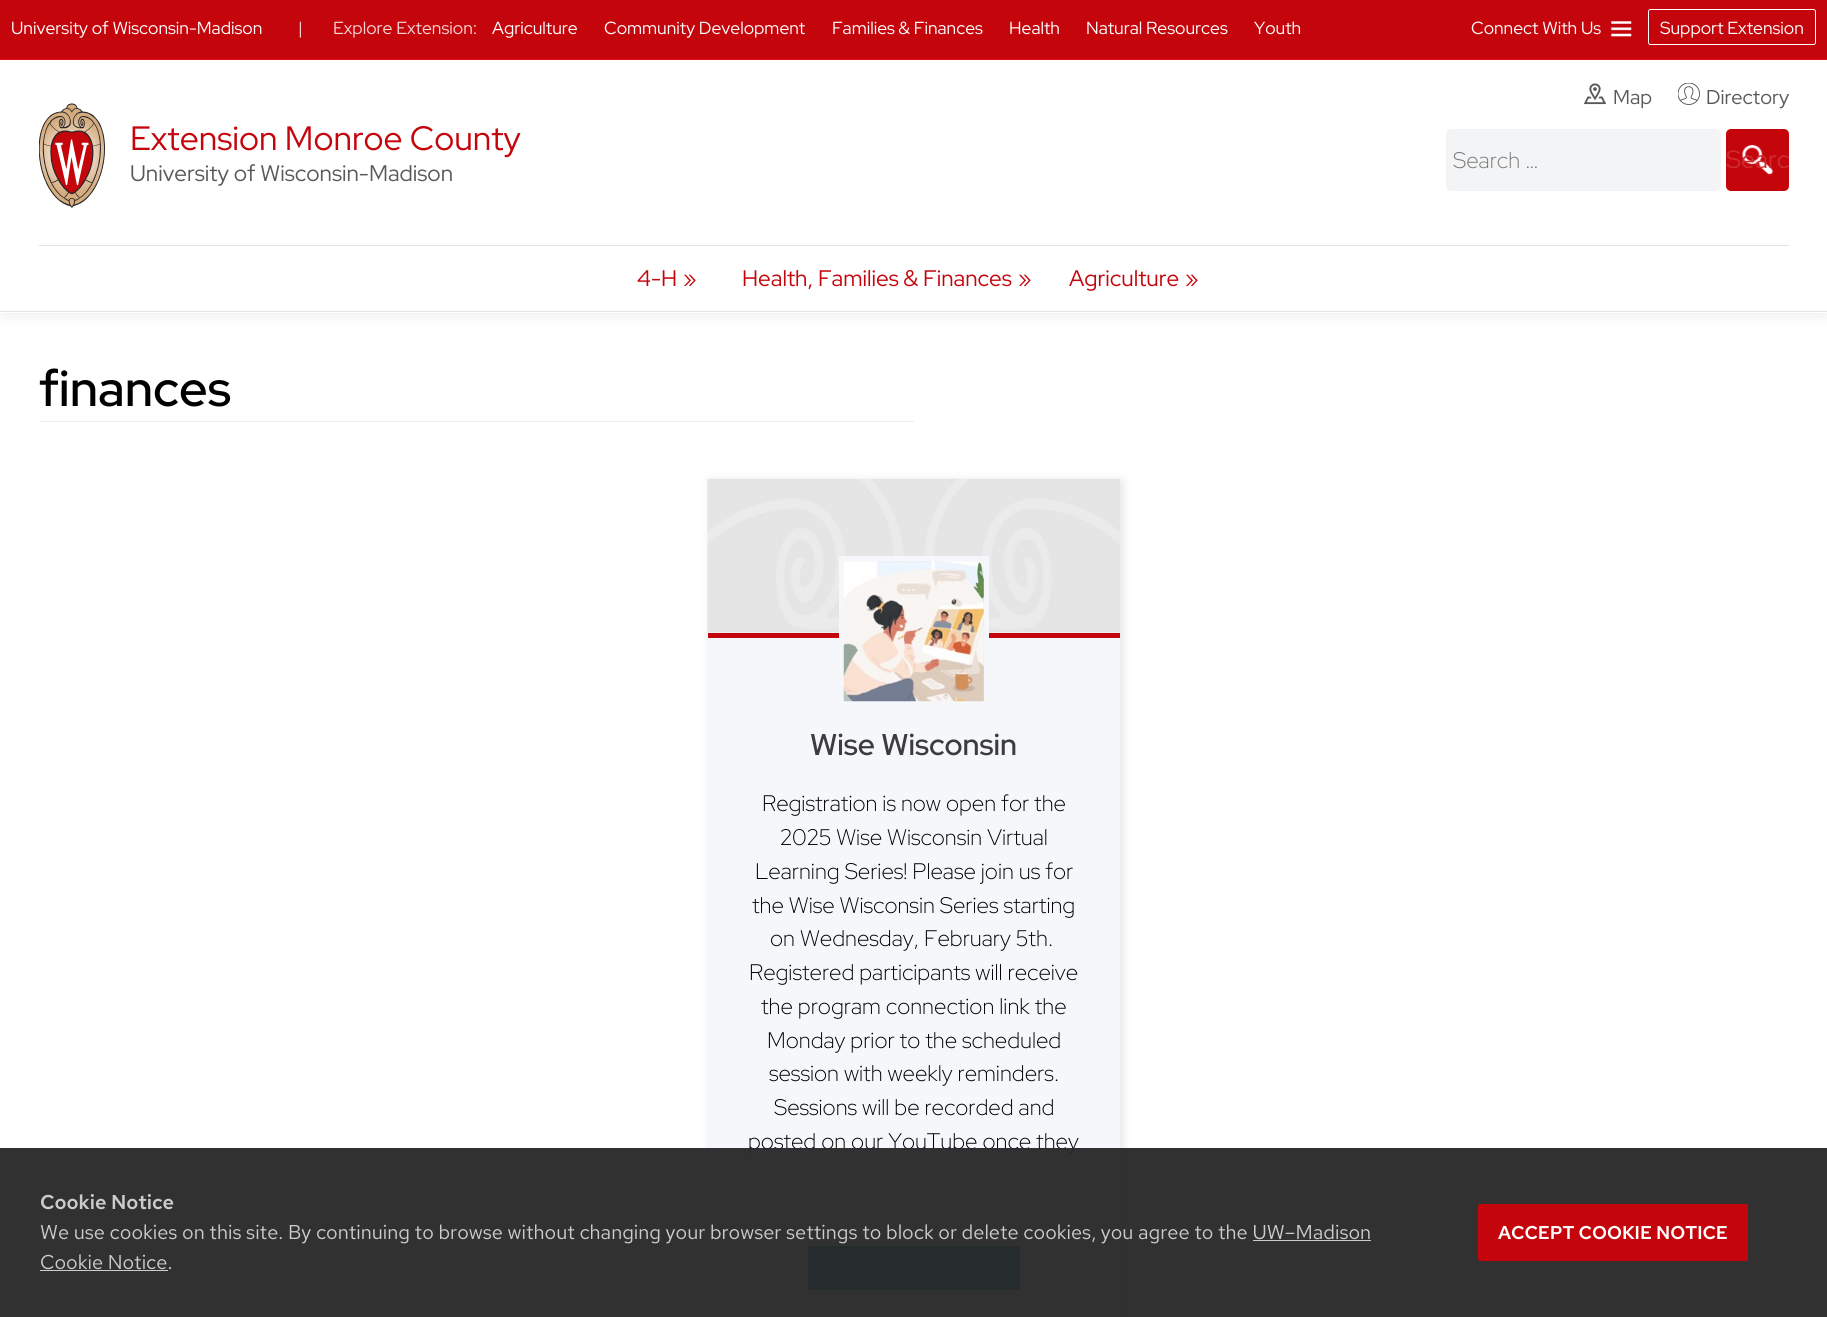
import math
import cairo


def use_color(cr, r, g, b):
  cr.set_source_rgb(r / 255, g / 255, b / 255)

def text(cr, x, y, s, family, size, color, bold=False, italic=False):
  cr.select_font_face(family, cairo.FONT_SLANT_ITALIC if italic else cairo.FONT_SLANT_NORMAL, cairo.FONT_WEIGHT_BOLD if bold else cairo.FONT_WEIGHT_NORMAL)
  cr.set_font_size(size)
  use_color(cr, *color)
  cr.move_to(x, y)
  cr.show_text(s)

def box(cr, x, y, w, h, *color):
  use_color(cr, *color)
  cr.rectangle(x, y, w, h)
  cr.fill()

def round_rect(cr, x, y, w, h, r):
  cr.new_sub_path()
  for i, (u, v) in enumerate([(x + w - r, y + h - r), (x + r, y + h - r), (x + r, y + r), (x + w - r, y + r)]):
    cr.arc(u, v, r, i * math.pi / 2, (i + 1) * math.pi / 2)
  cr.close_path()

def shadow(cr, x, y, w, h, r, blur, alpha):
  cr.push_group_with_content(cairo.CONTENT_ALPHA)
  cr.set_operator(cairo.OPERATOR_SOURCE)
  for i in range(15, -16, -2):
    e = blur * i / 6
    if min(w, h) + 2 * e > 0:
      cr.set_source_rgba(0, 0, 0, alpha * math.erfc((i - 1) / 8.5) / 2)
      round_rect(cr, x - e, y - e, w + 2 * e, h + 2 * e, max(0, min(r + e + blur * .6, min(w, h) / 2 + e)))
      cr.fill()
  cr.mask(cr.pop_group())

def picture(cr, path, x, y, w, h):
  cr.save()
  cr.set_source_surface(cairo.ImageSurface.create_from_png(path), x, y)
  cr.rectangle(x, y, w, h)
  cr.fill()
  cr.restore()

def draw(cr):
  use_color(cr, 255, 255, 255)
  cr.paint()
  cr.save()
  cr.set_fill_rule(cairo.FILL_RULE_EVEN_ODD)
  cr.new_path()
  cr.move_to(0, 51)
  cr.line_to(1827, 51)
  cr.line_to(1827, 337)
  cr.line_to(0, 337)
  cr.close_path()
  cr.move_to(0, 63)
  cr.line_to(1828, 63)
  cr.line_to(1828, 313)
  cr.line_to(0, 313)
  cr.close_path()
  cr.clip()
  use_color(cr, 195, 195, 195)
  shadow(cr, 0, 69, 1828, 250, 0, 5.5, 0.2)
  cr.restore()
  box(cr, 0, 0, 1827, 59, 197, 5, 12)
  box(cr, 0, 59, 1827, 1, 228, 11, 16)
  picture(cr, "img_01.png", 1611, 21, 21, 16)
  round_rect(cr, 1648.5, 9.5, 167, 35, 2)
  use_color(cr, 255, 255, 255)
  cr.set_line_width(1)
  cr.stroke()
  box(cr, 0, 311, 1827, 1, 226, 226, 226)
  picture(cr, "img_02.png", 1584, 83, 22, 22)
  picture(cr, "img_03.png", 1678, 83, 22, 22)
  picture(cr, "img_04.png", 39, 103, 66, 105)
  use_color(cr, 243, 244, 245)
  round_rect(cr, 1446, 129, 275, 62, 5)
  cr.fill()
  use_color(cr, 197, 5, 12)
  round_rect(cr, 1726, 129, 63, 62, 5)
  cr.fill()
  picture(cr, "img_05.png", 1742, 145, 31, 30)
  box(cr, 39, 245, 1750, 1, 226, 226, 226)
  box(cr, 39, 421, 875, 1, 236, 236, 236)
  use_color(cr, 0, 0, 0)
  shadow(cr, 710, 481, 413, 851, 0, 5, 0.1)
  box(cr, 708, 632, 412, 685, 245, 247, 250)
  box(cr, 708, 633, 412, 5, 197, 5, 12)
  picture(cr, "img_06.png", 707, 478, 413, 155)
  use_color(cr, 229, 229, 229)
  cr.rectangle(841.5, 558.5, 145, 145)
  cr.fill_preserve()
  use_color(cr, 245, 247, 250)
  cr.set_line_width(5)
  cr.stroke()
  picture(cr, "img_07.png", 843, 561, 141, 141)
  box(cr, 808, 1246, 212, 44, 4, 121, 168)
  text(cr, 11, 34, "University of Wisconsin-Madison", "Red Hat Display", 17.5, (255, 255, 255))
  text(cr, 298, 34, "|", "Red Hat Display", 17.5, (249, 212, 212))
  text(cr, 333, 34, "Explore Extension:", "Red Hat Display", 17.5, (249, 212, 212))
  text(cr, 492, 34, "Agriculture", "Red Hat Display", 17.5, (255, 255, 255))
  text(cr, 604, 34, "Community Development", "Red Hat Display", 17.5, (255, 255, 255))
  text(cr, 832, 34, "Families & Finances", "Red Hat Display", 17.5, (255, 255, 255))
  text(cr, 1009, 34, "Health", "Red Hat Display", 17.5, (255, 255, 255))
  text(cr, 1086, 34, "Natural Resources", "Red Hat Display", 17.5, (255, 255, 255))
  text(cr, 1254, 34, "Youth", "Red Hat Display", 17.5, (255, 255, 255))
  text(cr, 1471, 34, "Connect With Us", "Red Hat Display", 17.5, (255, 255, 255))
  text(cr, 1660, 34, "Support Extension", "Red Hat Display", 17.5, (255, 255, 255))
  text(cr, 1613, 104, "Map", "Red Hat Display", 20, (89, 89, 89))
  text(cr, 1706, 104, "Directory", "Red Hat Display", 20, (89, 89, 89))
  text(cr, 130, 150, "Extension Monroe County", "Red Hat Display", 33.75, (197, 5, 12))
  text(cr, 130, 181, "University of Wisconsin-Madison", "Red Hat Display", 22.5, (89, 89, 89))
  text(cr, 1453, 168, "Search …", "Red Hat Display Light", 22.5, (117, 117, 117))
  text(cr, 1726, 168, "Searc", "Red Hat Display", 25, (206, 43, 49))
  text(cr, 637, 286, "4-H", "Red Hat Display", 22.5, (197, 5, 12))
  text(cr, 683, 286, "»", "Red Hat Display", 22.5, (197, 5, 12))
  text(cr, 742, 286, "Health, Families & Finances", "Red Hat Display", 22.5, (197, 5, 12))
  text(cr, 1018, 286, "»", "Red Hat Display", 22.5, (197, 5, 12))
  text(cr, 1069, 286, "Agriculture", "Red Hat Display", 22.5, (197, 5, 12))
  text(cr, 1185, 286, "»", "Red Hat Display", 22.5, (197, 5, 12))
  text(cr, 39, 406, "finances", "Red Hat Display SemiBold", 50, (0, 0, 0))
  text(cr, 810, 755, "Wise Wisconsin", "Red Hat Display SemiBold", 30, (60, 60, 60))
  text(cr, 762, 811, "Registration is now open for the", "Red Hat Display Light", 22.5, (0, 0, 0))
  text(cr, 780, 845, "2025 Wise Wisconsin Virtual", "Red Hat Display Light", 22.5, (0, 0, 0))
  text(cr, 755, 879, "Learning Series! Please join us for", "Red Hat Display Light", 22.5, (0, 0, 0))
  text(cr, 752, 913, "the Wise Wisconsin Series starting", "Red Hat Display Light", 22.5, (0, 0, 0))
  text(cr, 770, 946, "on Wednesday, February 5th.", "Red Hat Display Light", 22.5, (0, 0, 0))
  text(cr, 749, 980, "Registered participants will receive", "Red Hat Display Light", 22.5, (0, 0, 0))
  text(cr, 761, 1014, "the program connection link the", "Red Hat Display Light", 22.5, (0, 0, 0))
  text(cr, 767, 1048, "Monday prior to the scheduled", "Red Hat Display Light", 22.5, (0, 0, 0))
  text(cr, 769, 1081, "session with weekly reminders.", "Red Hat Display Light", 22.5, (0, 0, 0))
  text(cr, 774, 1115, "Sessions will be recorded and", "Red Hat Display Light", 22.5, (0, 0, 0))
  text(cr, 748, 1149, "posted on our YouTube once they", "Red Hat Display Light", 22.5, (0, 0, 0))
  cr.set_source_rgba(0.157, 0.153, 0.157, 0.95)
  cr.rectangle(0, 1148, 1827, 169)
  cr.fill()
  text(cr, 40, 1209, "Cookie Notice", "Red Hat Text SemiBold", 20, (204, 204, 204))
  text(cr, 40, 1239, "We use cookies on this site. By continuing to browse without changing your browser settings to block or delete cookies, you agree to the UW–Madison", "Red Hat Text", 20, (204, 204, 204))
  text(cr, 40, 1269, "Cookie Notice.", "Red Hat Text", 20, (204, 204, 204))
  box(cr, 1253, 1240, 118, 1, 204, 204, 204)
  box(cr, 40, 1270, 128, 1, 204, 204, 204)
  use_color(cr, 197, 5, 12)
  round_rect(cr, 1478, 1204, 270, 57, 2.5)
  cr.fill()
  text(cr, 1498, 1239, "ACCEPT COOKIE NOTICE", "Red Hat Text SemiBold", 18.5, (255, 255, 255))


surface = cairo.ImageSurface(cairo.FORMAT_RGB24, 1827, 1317)
cr = cairo.Context(surface)
options = cairo.FontOptions()
options.set_hint_metrics(cairo.HINT_METRICS_OFF)
options.set_hint_style(cairo.HINT_STYLE_NONE)
cr.set_font_options(options)
cr.set_miter_limit(4)
draw(cr)
surface.write_to_png("out.png")
